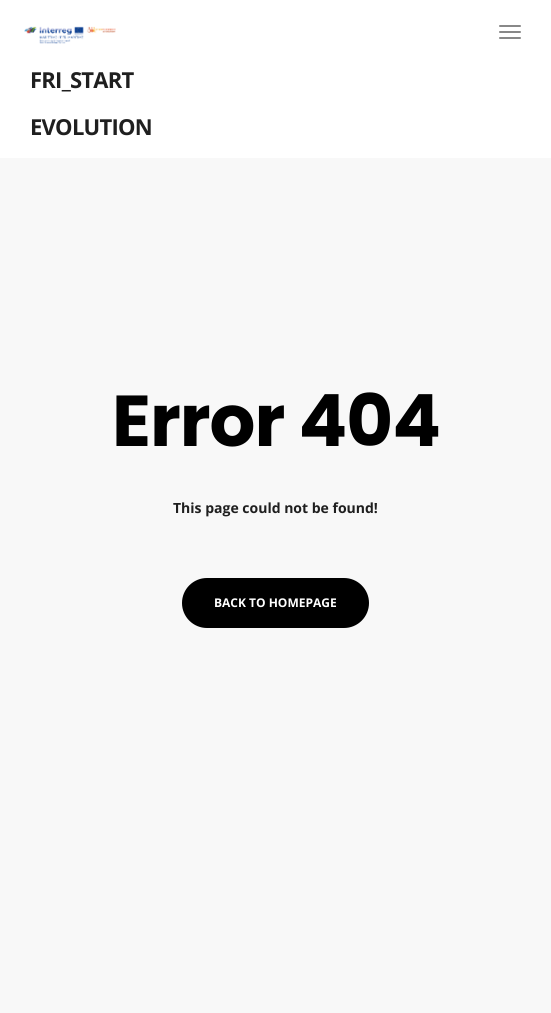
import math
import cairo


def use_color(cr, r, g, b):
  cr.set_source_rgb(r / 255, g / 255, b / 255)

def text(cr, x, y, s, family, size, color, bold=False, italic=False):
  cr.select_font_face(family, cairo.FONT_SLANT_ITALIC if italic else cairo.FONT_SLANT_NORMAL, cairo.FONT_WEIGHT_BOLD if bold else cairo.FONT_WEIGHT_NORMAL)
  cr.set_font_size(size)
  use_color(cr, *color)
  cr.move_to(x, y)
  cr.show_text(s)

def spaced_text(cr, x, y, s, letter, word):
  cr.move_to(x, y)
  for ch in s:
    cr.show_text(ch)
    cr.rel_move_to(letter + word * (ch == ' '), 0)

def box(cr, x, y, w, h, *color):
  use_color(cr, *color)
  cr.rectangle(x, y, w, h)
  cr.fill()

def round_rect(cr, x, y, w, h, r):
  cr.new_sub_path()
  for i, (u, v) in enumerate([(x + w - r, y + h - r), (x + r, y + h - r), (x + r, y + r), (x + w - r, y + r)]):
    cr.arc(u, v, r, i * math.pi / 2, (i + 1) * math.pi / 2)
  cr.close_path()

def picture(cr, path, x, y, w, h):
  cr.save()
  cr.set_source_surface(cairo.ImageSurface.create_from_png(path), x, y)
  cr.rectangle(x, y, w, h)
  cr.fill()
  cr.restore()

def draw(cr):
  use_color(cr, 248, 248, 248)
  cr.paint()
  box(cr, 0, 0, 551, 158, 255, 255, 255)
  use_color(cr, 136, 136, 136)
  round_rect(cr, 499, 25, 22, 2, 1)
  cr.fill()
  round_rect(cr, 499, 31, 22, 2, 1)
  cr.fill()
  round_rect(cr, 499, 37, 22, 2, 1)
  cr.fill()
  picture(cr, "img_01.png", 24, 26, 92, 18)
  use_color(cr, 0, 0, 0)
  round_rect(cr, 183, 579, 185, 48, 24)
  cr.fill_preserve()
  cr.stroke()
  cr.select_font_face("Open Sans", cairo.FONT_SLANT_NORMAL, cairo.FONT_WEIGHT_BOLD)
  cr.set_font_size(22)
  use_color(cr, 31, 31, 31)
  spaced_text(cr, 30, 88, "FRI_START", -0.75, 0)
  spaced_text(cr, 30, 135, "EVOLUTION", -0.75, 0)
  cr.select_font_face("Poppins", cairo.FONT_SLANT_NORMAL, cairo.FONT_WEIGHT_BOLD)
  cr.set_font_size(72)
  use_color(cr, 0, 0, 0)
  spaced_text(cr, 112, 446, "Error 404", -1, 0)
  text(cr, 173, 513, "This page could not be found!", "Open Sans", 14, (31, 31, 31), bold=True)
  text(cr, 214, 607, "BACK TO HOMEPAGE", "Open Sans", 12, (255, 255, 255), bold=True)


surface = cairo.ImageSurface(cairo.FORMAT_RGB24, 551, 1013)
cr = cairo.Context(surface)
options = cairo.FontOptions()
options.set_hint_metrics(cairo.HINT_METRICS_OFF)
options.set_hint_style(cairo.HINT_STYLE_NONE)
cr.set_font_options(options)
cr.set_miter_limit(4)
draw(cr)
surface.write_to_png("out.png")
